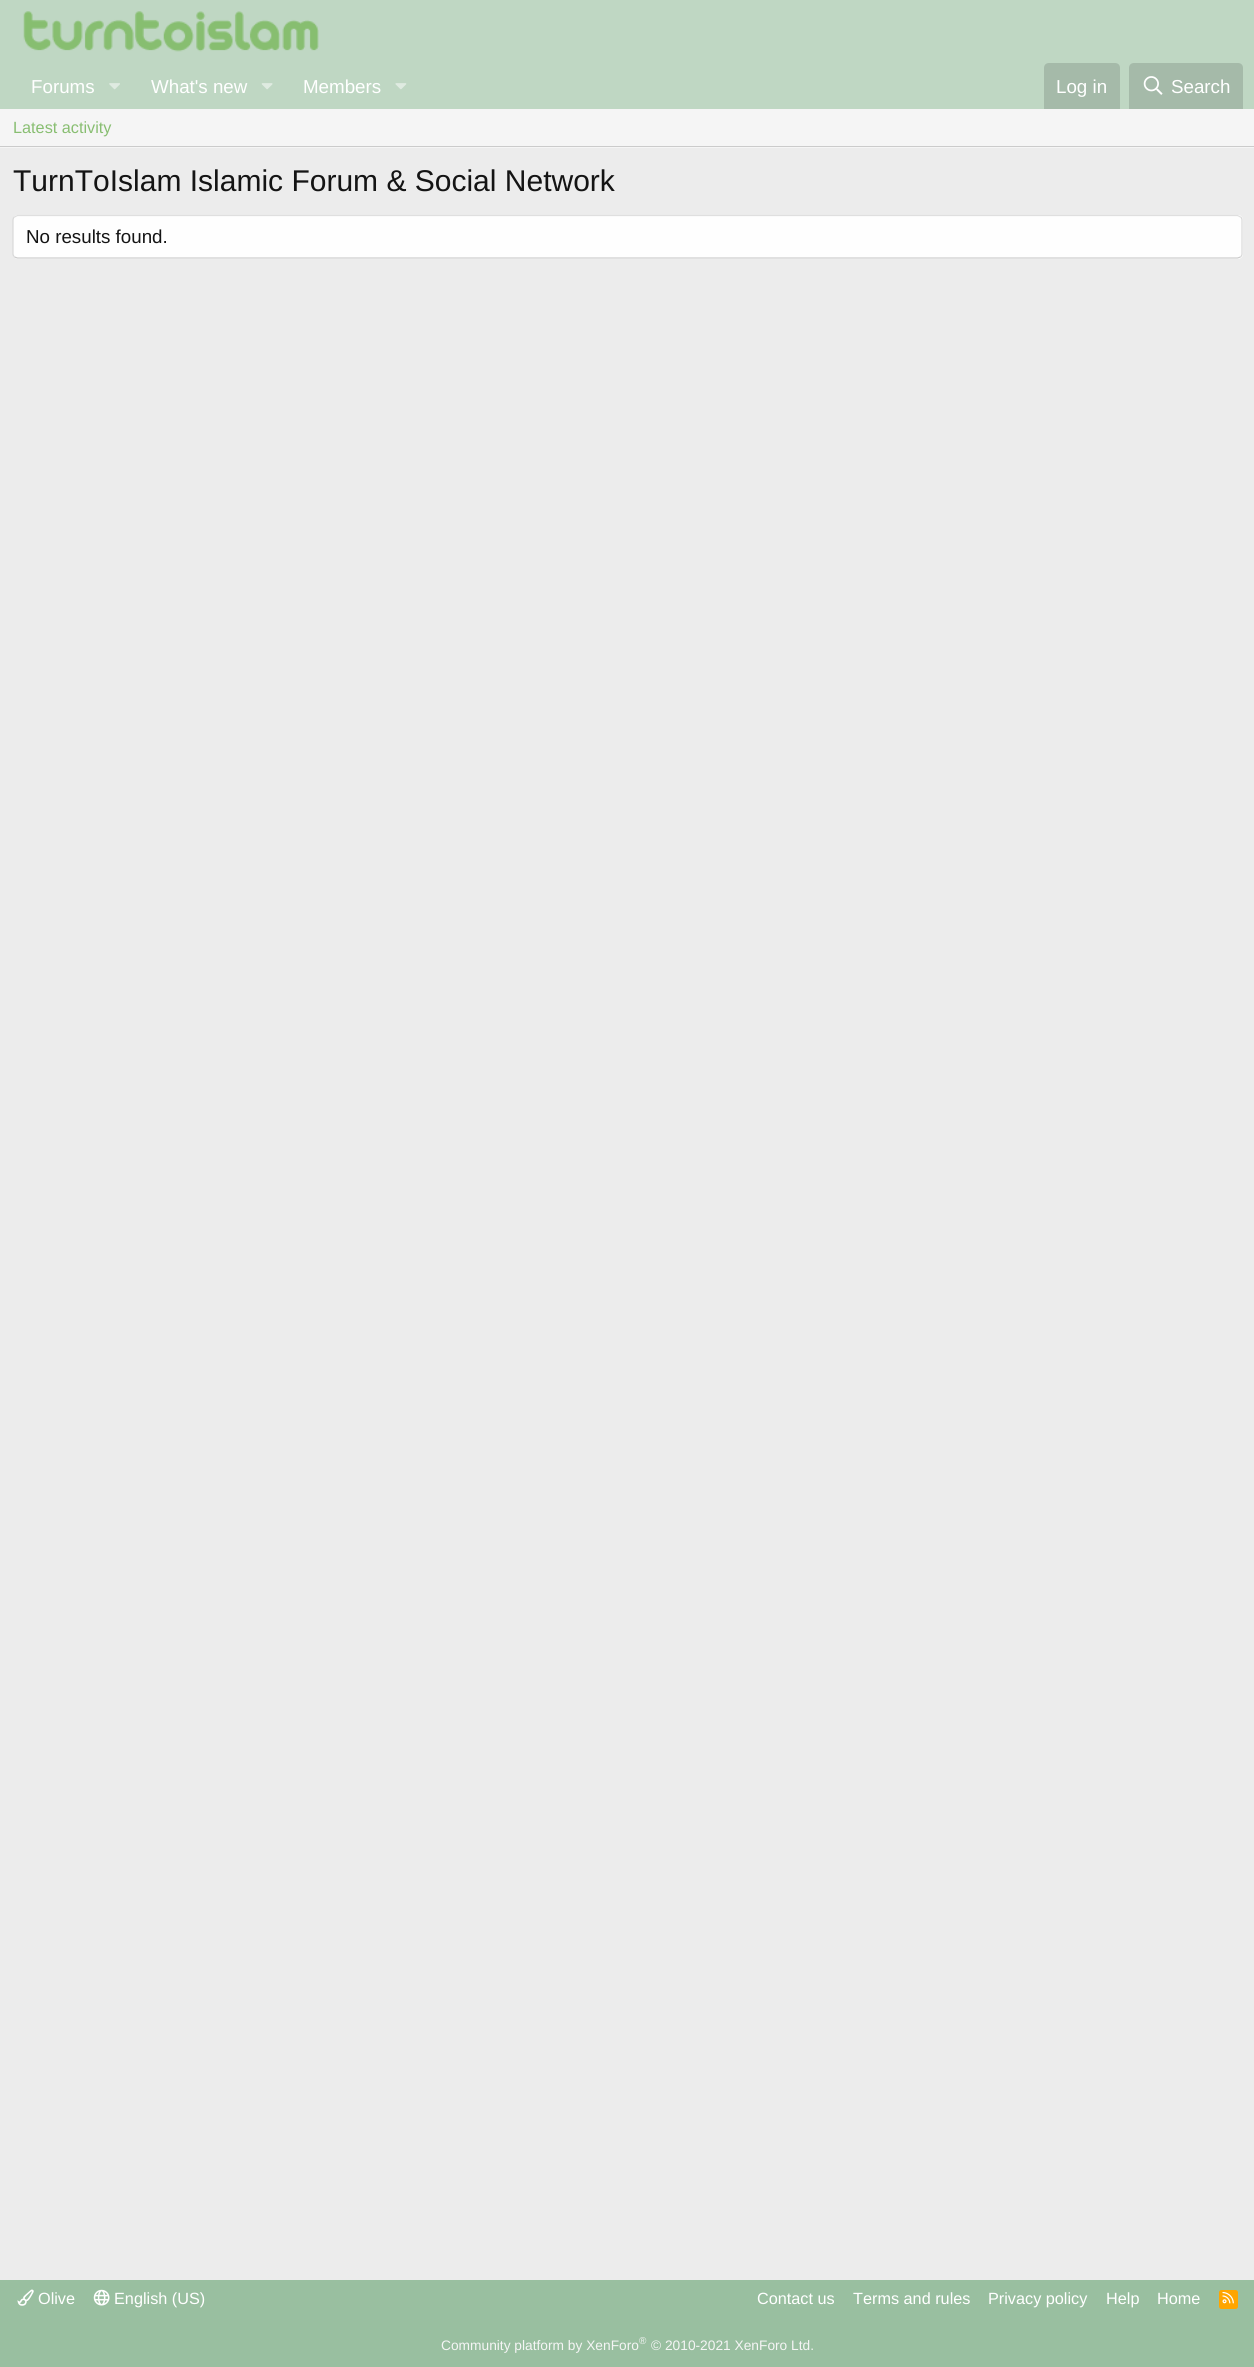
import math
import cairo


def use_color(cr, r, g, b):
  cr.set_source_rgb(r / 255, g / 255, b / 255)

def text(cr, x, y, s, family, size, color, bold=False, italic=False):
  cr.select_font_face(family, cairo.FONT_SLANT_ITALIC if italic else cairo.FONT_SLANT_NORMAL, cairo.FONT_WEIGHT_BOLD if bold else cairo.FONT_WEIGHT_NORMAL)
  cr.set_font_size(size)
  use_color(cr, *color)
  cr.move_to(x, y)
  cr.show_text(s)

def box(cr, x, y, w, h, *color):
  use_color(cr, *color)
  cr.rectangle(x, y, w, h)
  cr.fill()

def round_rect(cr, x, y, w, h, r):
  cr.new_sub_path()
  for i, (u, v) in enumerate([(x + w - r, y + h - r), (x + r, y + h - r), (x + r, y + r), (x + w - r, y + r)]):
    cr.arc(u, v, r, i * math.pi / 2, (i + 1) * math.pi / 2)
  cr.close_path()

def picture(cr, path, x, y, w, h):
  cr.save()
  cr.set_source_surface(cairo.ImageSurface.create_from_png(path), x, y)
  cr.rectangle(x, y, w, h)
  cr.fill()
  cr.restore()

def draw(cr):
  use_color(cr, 236, 236, 236)
  cr.paint()
  box(cr, 0, 0, 1254, 109, 191, 215, 195)
  picture(cr, "img_01.png", 23, 11, 296, 41)
  picture(cr, "img_02.png", 109, 83, 11, 7)
  picture(cr, "img_03.png", 261, 83, 12, 7)
  picture(cr, "img_04.png", 395, 83, 12, 7)
  use_color(cr, 165, 186, 169)
  cr.new_path()
  cr.move_to(1049, 63)
  cr.line_to(1115, 63)
  cr.curve_to(1118, 63, 1120, 65, 1120, 68)
  cr.line_to(1120, 109)
  cr.line_to(1044, 109)
  cr.line_to(1044, 68)
  cr.curve_to(1044, 65, 1046, 63, 1049, 63)
  cr.close_path()
  cr.fill()
  cr.new_path()
  cr.move_to(1134, 63)
  cr.line_to(1238, 63)
  cr.curve_to(1241, 63, 1243, 65, 1243, 68)
  cr.line_to(1243, 109)
  cr.line_to(1129, 109)
  cr.line_to(1129, 68)
  cr.curve_to(1129, 65, 1131, 63, 1134, 63)
  cr.close_path()
  cr.fill()
  picture(cr, "img_05.png", 1143, 76, 20, 19)
  box(cr, 0, 109, 1254, 39, 245, 245, 245)
  box(cr, 0, 146, 1254, 1, 203, 203, 203)
  use_color(cr, 254, 254, 254)
  round_rect(cr, 13, 215, 1230, 44, 5)
  cr.fill()
  cr.new_path()
  cr.move_to(14.5, 217)
  cr.line_to(17.5, 215.5)
  cr.line_to(1237.5, 215.5)
  cr.line_to(1240.5, 217)
  use_color(cr, 223, 223, 223)
  cr.set_line_width(1.2)
  cr.stroke()
  cr.new_path()
  cr.move_to(1240.5, 217)
  cr.curve_to(1241.5, 217.5, 1242, 219, 1242, 220)
  cr.line_to(1242, 254)
  cr.curve_to(1242, 255, 1241.5, 256, 1240.5, 257)
  use_color(cr, 216, 216, 216)
  cr.stroke()
  cr.new_path()
  cr.move_to(1240.5, 257)
  cr.line_to(1237.5, 258)
  cr.line_to(17.5, 258)
  cr.line_to(14.5, 257)
  use_color(cr, 203, 203, 203)
  cr.stroke()
  cr.new_path()
  cr.move_to(14.5, 257)
  cr.curve_to(13.5, 256, 13, 255, 13, 254)
  cr.line_to(13, 220)
  cr.curve_to(13, 219, 13.5, 217.5, 14.5, 217)
  use_color(cr, 216, 216, 216)
  cr.stroke()
  box(cr, 0, 2280, 1254, 87, 153, 191, 160)
  picture(cr, "img_06.png", 17, 2289, 17, 17)
  picture(cr, "img_07.png", 93, 2289, 17, 17)
  use_color(cr, 255, 165, 0)
  round_rect(cr, 1219, 2290, 19, 19, 2.5)
  cr.fill()
  picture(cr, "img_08.png", 1222, 2292, 12, 12)
  text(cr, 31, 93, "Forums", "Liberation Sans", 18.75, (255, 255, 255))
  text(cr, 151, 93, "What's new", "Liberation Sans", 18.75, (255, 255, 255))
  text(cr, 303, 93, "Members", "Liberation Sans", 18.75, (255, 255, 255))
  text(cr, 1056, 93, "Log in", "Liberation Sans", 18.75, (255, 255, 255))
  text(cr, 1171, 93, "Search", "Liberation Sans", 18.75, (255, 255, 255))
  text(cr, 13, 133, "Latest activity", "Liberation Sans", 16.25, (136, 190, 113))
  text(cr, 13, 191, "TurnToIslam Islamic Forum & Social Network", "Liberation Sans", 30, (20, 20, 20))
  text(cr, 26, 243, "No results found.", "Liberation Sans", 18.75, (20, 20, 20))
  text(cr, 38, 2304, "Olive", "Liberation Sans", 16.25, (255, 255, 255))
  text(cr, 114, 2304, "English (US)", "Liberation Sans", 16.25, (255, 255, 255))
  text(cr, 757, 2304, "Contact us", "Liberation Sans", 16.25, (255, 255, 255))
  text(cr, 853, 2304, "Terms and rules", "Liberation Sans", 16.25, (255, 255, 255))
  text(cr, 988, 2304, "Privacy policy", "Liberation Sans", 16.25, (255, 255, 255))
  text(cr, 1106, 2304, "Help", "Liberation Sans", 16.25, (255, 255, 255))
  text(cr, 1157, 2304, "Home", "Liberation Sans", 16.25, (255, 255, 255))
  text(cr, 441, 2350, "Community platform by XenForo", "Liberation Sans", 13.75, (245, 245, 245))
  text(cr, 639, 2344, "®", "Liberation Sans", 10, (245, 245, 245))
  text(cr, 651, 2350, "© 2010-2021 XenForo Ltd.", "Liberation Sans", 13.75, (245, 245, 245))


surface = cairo.ImageSurface(cairo.FORMAT_RGB24, 1254, 2367)
cr = cairo.Context(surface)
options = cairo.FontOptions()
options.set_hint_metrics(cairo.HINT_METRICS_OFF)
options.set_hint_style(cairo.HINT_STYLE_NONE)
cr.set_font_options(options)
cr.set_miter_limit(4)
draw(cr)
surface.write_to_png("out.png")
